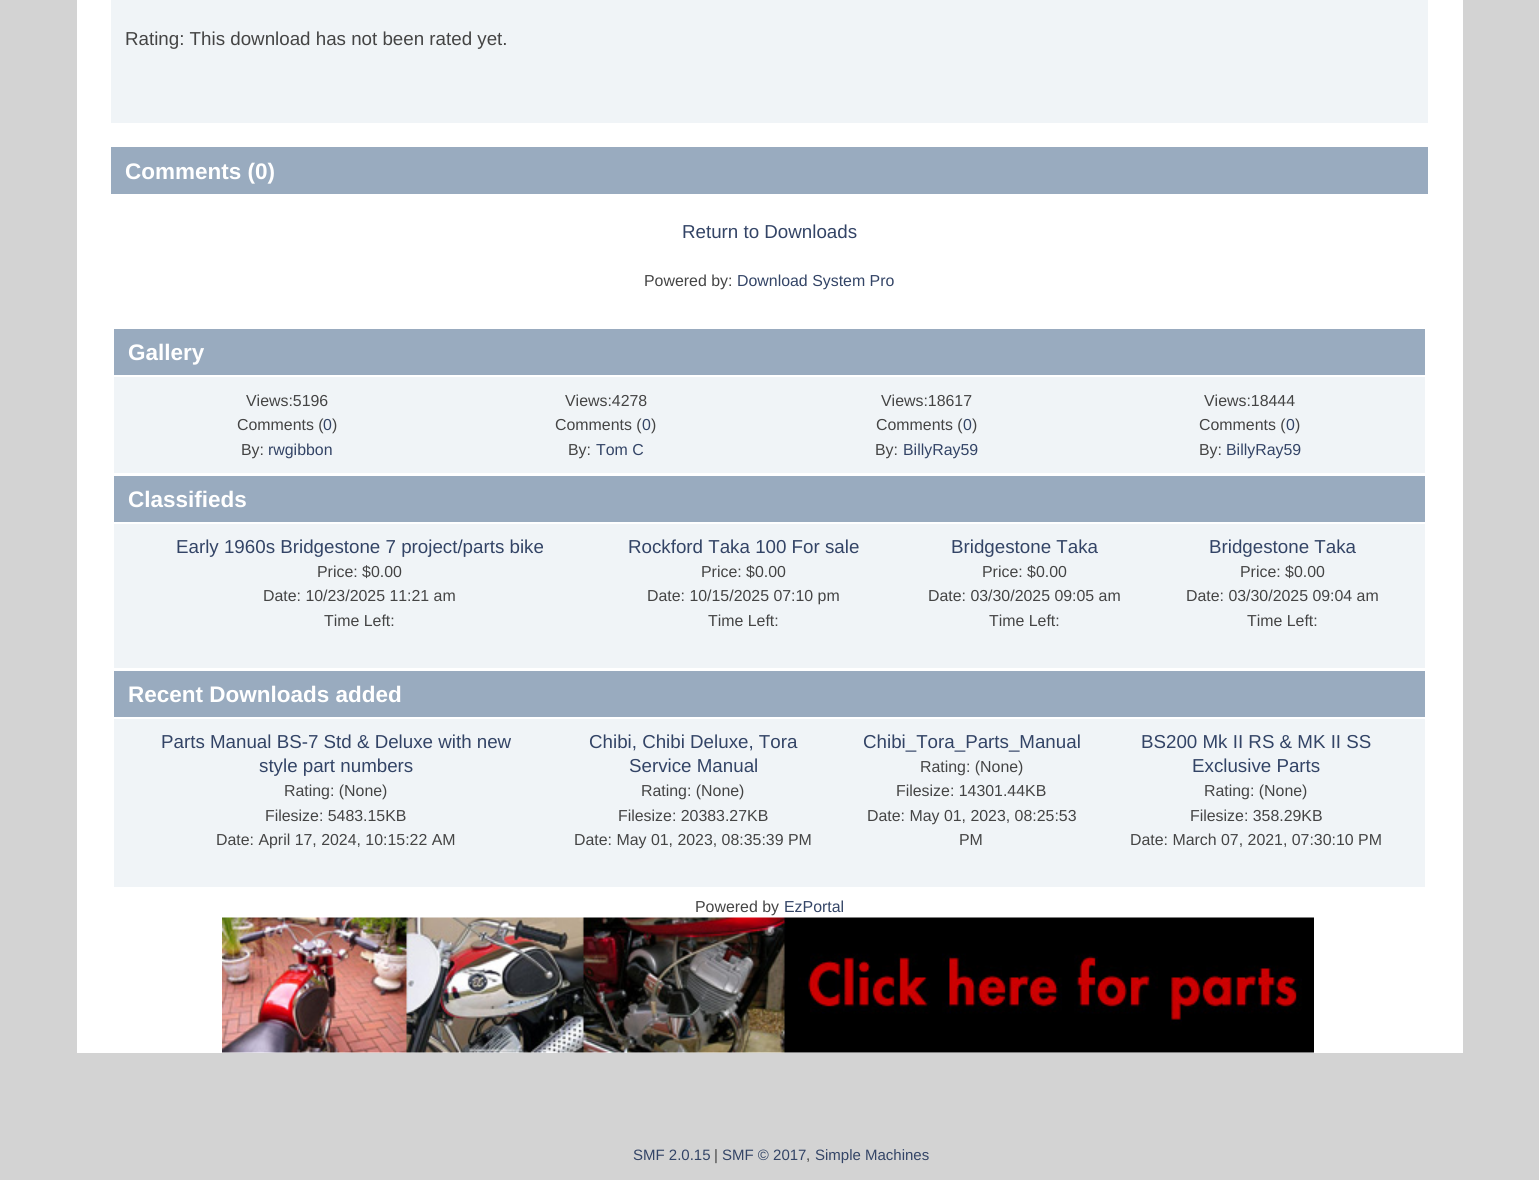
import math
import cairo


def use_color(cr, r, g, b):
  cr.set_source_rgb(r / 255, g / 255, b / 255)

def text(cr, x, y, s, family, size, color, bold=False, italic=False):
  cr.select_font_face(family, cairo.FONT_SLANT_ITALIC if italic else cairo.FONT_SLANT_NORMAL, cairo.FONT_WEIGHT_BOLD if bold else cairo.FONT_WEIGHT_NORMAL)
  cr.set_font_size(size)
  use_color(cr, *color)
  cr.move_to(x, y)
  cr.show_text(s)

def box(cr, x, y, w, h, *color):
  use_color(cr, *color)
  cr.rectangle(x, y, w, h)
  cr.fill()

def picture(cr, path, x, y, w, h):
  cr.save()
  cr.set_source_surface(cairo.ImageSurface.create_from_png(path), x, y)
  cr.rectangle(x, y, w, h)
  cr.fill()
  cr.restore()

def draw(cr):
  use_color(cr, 211, 211, 211)
  cr.paint()
  box(cr, 77, 0, 1386, 1053, 255, 255, 255)
  box(cr, 111, 0, 1317, 123, 240, 244, 247)
  box(cr, 111, 147, 1317, 47, 153, 171, 191)
  box(cr, 114, 329, 1311, 46, 153, 171, 191)
  box(cr, 114, 377, 1311, 96, 240, 244, 247)
  box(cr, 114, 476, 1311, 46, 153, 171, 191)
  box(cr, 114, 524, 1311, 144, 240, 244, 247)
  box(cr, 114, 671, 1311, 46, 153, 171, 191)
  box(cr, 114, 719, 1311, 168, 240, 244, 247)
  picture(cr, "img_01.png", 222, 917, 1092, 136)
  text(cr, 125, 45, "Rating: This download has not been rated yet.", "Liberation Sans", 18.75, (68, 68, 68))
  text(cr, 125, 179, "Comments (0)", "Liberation Sans", 22.5, (255, 255, 255), bold=True)
  text(cr, 682, 238, "Return to Downloads", "Liberation Sans", 18.75, (51, 68, 102))
  text(cr, 644, 286, "Powered by:", "Liberation Sans", 15.9, (68, 68, 68))
  text(cr, 737, 286, "Download System Pro", "Liberation Sans", 15.9, (51, 68, 102))
  text(cr, 128, 360, "Gallery", "Liberation Sans", 22.5, (255, 255, 255), bold=True)
  text(cr, 246, 406, "Views:5196", "Liberation Sans", 15.9, (68, 68, 68))
  text(cr, 237, 430, "Comments (", "Liberation Sans", 15.9, (68, 68, 68))
  text(cr, 323, 430, "0", "Liberation Sans", 15.9, (51, 68, 102))
  text(cr, 332, 430, ")", "Liberation Sans", 15.9, (68, 68, 68))
  text(cr, 241, 455, "By:", "Liberation Sans", 15.9, (68, 68, 68))
  text(cr, 268, 455, "rwgibbon", "Liberation Sans", 15.9, (51, 68, 102))
  text(cr, 565, 406, "Views:4278", "Liberation Sans", 15.9, (68, 68, 68))
  text(cr, 555, 430, "Comments (", "Liberation Sans", 15.9, (68, 68, 68))
  text(cr, 642, 430, "0", "Liberation Sans", 15.9, (51, 68, 102))
  text(cr, 651, 430, ")", "Liberation Sans", 15.9, (68, 68, 68))
  text(cr, 568, 455, "By:", "Liberation Sans", 15.9, (68, 68, 68))
  text(cr, 596, 455, "Tom C", "Liberation Sans", 15.9, (51, 68, 102))
  text(cr, 881, 406, "Views:18617", "Liberation Sans", 15.9, (68, 68, 68))
  text(cr, 876, 430, "Comments (", "Liberation Sans", 15.9, (68, 68, 68))
  text(cr, 963, 430, "0", "Liberation Sans", 15.9, (51, 68, 102))
  text(cr, 972, 430, ")", "Liberation Sans", 15.9, (68, 68, 68))
  text(cr, 875, 455, "By:", "Liberation Sans", 15.9, (68, 68, 68))
  text(cr, 903, 455, "BillyRay59", "Liberation Sans", 15.9, (51, 68, 102))
  text(cr, 1204, 406, "Views:18444", "Liberation Sans", 15.9, (68, 68, 68))
  text(cr, 1199, 430, "Comments (", "Liberation Sans", 15.9, (68, 68, 68))
  text(cr, 1286, 430, "0", "Liberation Sans", 15.9, (51, 68, 102))
  text(cr, 1295, 430, ")", "Liberation Sans", 15.9, (68, 68, 68))
  text(cr, 1199, 455, "By:", "Liberation Sans", 15.9, (68, 68, 68))
  text(cr, 1226, 455, "BillyRay59", "Liberation Sans", 15.9, (51, 68, 102))
  text(cr, 128, 507, "Classifieds", "Liberation Sans", 22.5, (255, 255, 255), bold=True)
  text(cr, 176, 553, "Early 1960s Bridgestone 7 project/parts bike", "Liberation Sans", 18.75, (51, 68, 102))
  text(cr, 317, 577, "Price: $0.00", "Liberation Sans", 15.9, (68, 68, 68))
  text(cr, 263, 601, "Date: 10/23/2025 11:21 am", "Liberation Sans", 15.9, (68, 68, 68))
  text(cr, 324, 626, "Time Left:", "Liberation Sans", 15.9, (68, 68, 68))
  text(cr, 628, 553, "Rockford Taka 100 For sale", "Liberation Sans", 18.75, (51, 68, 102))
  text(cr, 701, 577, "Price: $0.00", "Liberation Sans", 15.9, (68, 68, 68))
  text(cr, 647, 601, "Date: 10/15/2025 07:10 pm", "Liberation Sans", 15.9, (68, 68, 68))
  text(cr, 708, 626, "Time Left:", "Liberation Sans", 15.9, (68, 68, 68))
  text(cr, 951, 553, "Bridgestone Taka", "Liberation Sans", 18.75, (51, 68, 102))
  text(cr, 982, 577, "Price: $0.00", "Liberation Sans", 15.9, (68, 68, 68))
  text(cr, 928, 601, "Date: 03/30/2025 09:05 am", "Liberation Sans", 15.9, (68, 68, 68))
  text(cr, 989, 626, "Time Left:", "Liberation Sans", 15.9, (68, 68, 68))
  text(cr, 1209, 553, "Bridgestone Taka", "Liberation Sans", 18.75, (51, 68, 102))
  text(cr, 1240, 577, "Price: $0.00", "Liberation Sans", 15.9, (68, 68, 68))
  text(cr, 1186, 601, "Date: 03/30/2025 09:04 am", "Liberation Sans", 15.9, (68, 68, 68))
  text(cr, 1247, 626, "Time Left:", "Liberation Sans", 15.9, (68, 68, 68))
  text(cr, 128, 702, "Recent Downloads added", "Liberation Sans", 22.5, (255, 255, 255), bold=True)
  text(cr, 161, 748, "Parts Manual BS-7 Std & Deluxe with new", "Liberation Sans", 18.75, (51, 68, 102))
  text(cr, 259, 772, "style part numbers", "Liberation Sans", 18.75, (51, 68, 102))
  text(cr, 284, 796, "Rating: (None)", "Liberation Sans", 15.9, (68, 68, 68))
  text(cr, 265, 821, "Filesize: 5483.15KB", "Liberation Sans", 15.9, (68, 68, 68))
  text(cr, 216, 845, "Date: April 17, 2024, 10:15:22 AM", "Liberation Sans", 15.9, (68, 68, 68))
  text(cr, 589, 748, "Chibi, Chibi Deluxe, Tora", "Liberation Sans", 18.75, (51, 68, 102))
  text(cr, 629, 772, "Service Manual", "Liberation Sans", 18.75, (51, 68, 102))
  text(cr, 641, 796, "Rating: (None)", "Liberation Sans", 15.9, (68, 68, 68))
  text(cr, 618, 821, "Filesize: 20383.27KB", "Liberation Sans", 15.9, (68, 68, 68))
  text(cr, 574, 845, "Date: May 01, 2023, 08:35:39 PM", "Liberation Sans", 15.9, (68, 68, 68))
  text(cr, 863, 748, "Chibi_Tora_Parts_Manual", "Liberation Sans", 18.75, (51, 68, 102))
  text(cr, 920, 772, "Rating: (None)", "Liberation Sans", 15.9, (68, 68, 68))
  text(cr, 896, 796, "Filesize: 14301.44KB", "Liberation Sans", 15.9, (68, 68, 68))
  text(cr, 867, 821, "Date: May 01, 2023, 08:25:53", "Liberation Sans", 15.9, (68, 68, 68))
  text(cr, 959, 845, "PM", "Liberation Sans", 15.9, (68, 68, 68))
  text(cr, 1141, 748, "BS200 Mk II RS & MK II SS", "Liberation Sans", 18.75, (51, 68, 102))
  text(cr, 1192, 772, "Exclusive Parts", "Liberation Sans", 18.75, (51, 68, 102))
  text(cr, 1204, 796, "Rating: (None)", "Liberation Sans", 15.9, (68, 68, 68))
  text(cr, 1190, 821, "Filesize: 358.29KB", "Liberation Sans", 15.9, (68, 68, 68))
  text(cr, 1130, 845, "Date: March 07, 2021, 07:30:10 PM", "Liberation Sans", 15.9, (68, 68, 68))
  text(cr, 695, 912, "Powered by", "Liberation Sans", 15.9, (68, 68, 68))
  text(cr, 784, 912, "EzPortal", "Liberation Sans", 15.9, (51, 68, 102))
  text(cr, 633, 1160, "SMF 2.0.15", "Liberation Sans", 15, (51, 68, 102))
  text(cr, 714, 1160, "|", "Liberation Sans", 15, (68, 68, 68))
  text(cr, 722, 1160, "SMF © 2017", "Liberation Sans", 15, (51, 68, 102))
  text(cr, 806, 1160, ",", "Liberation Sans", 15, (68, 68, 68))
  text(cr, 815, 1160, "Simple Machines", "Liberation Sans", 15, (51, 68, 102))


surface = cairo.ImageSurface(cairo.FORMAT_RGB24, 1539, 1180)
cr = cairo.Context(surface)
options = cairo.FontOptions()
options.set_hint_metrics(cairo.HINT_METRICS_OFF)
options.set_hint_style(cairo.HINT_STYLE_NONE)
cr.set_font_options(options)
cr.set_miter_limit(4)
draw(cr)
surface.write_to_png("out.png")
